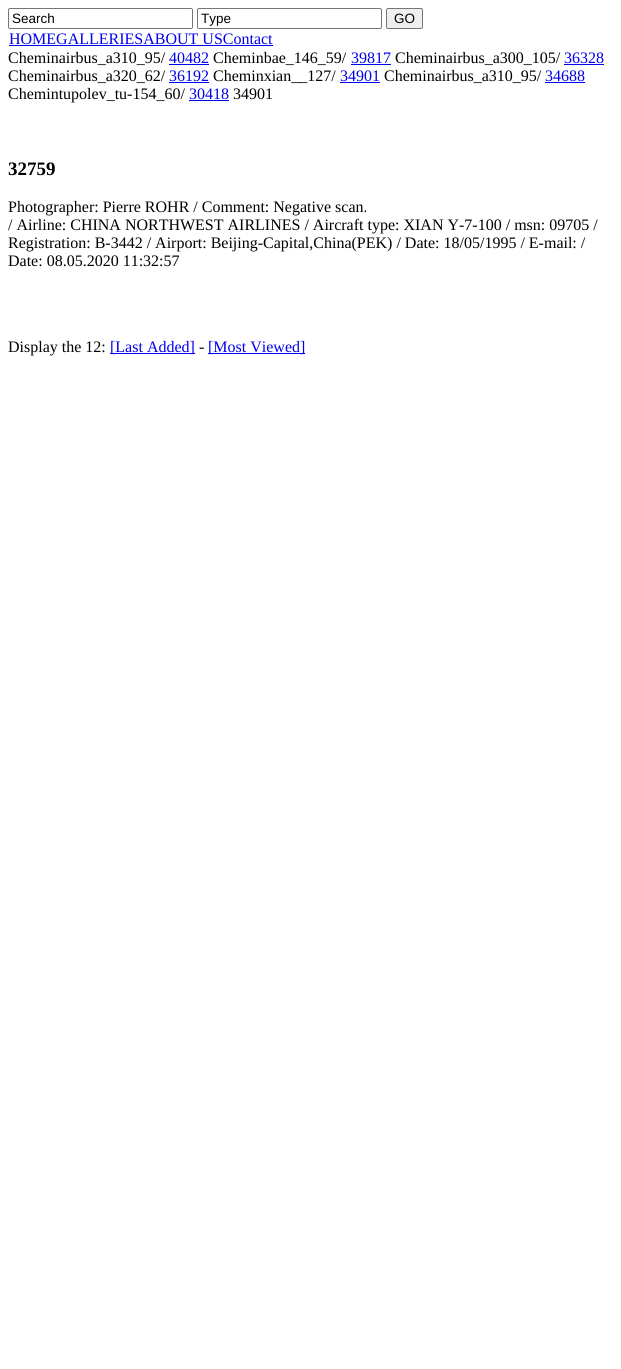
import math
import cairo


def use_color(cr, r, g, b):
  cr.set_source_rgb(r / 255, g / 255, b / 255)

def text(cr, x, y, s, family, size, color, bold=False, italic=False):
  cr.select_font_face(family, cairo.FONT_SLANT_ITALIC if italic else cairo.FONT_SLANT_NORMAL, cairo.FONT_WEIGHT_BOLD if bold else cairo.FONT_WEIGHT_NORMAL)
  cr.set_font_size(size)
  use_color(cr, *color)
  cr.move_to(x, y)
  cr.show_text(s)

def box(cr, x, y, w, h, *color):
  use_color(cr, *color)
  cr.rectangle(x, y, w, h)
  cr.fill()

def round_rect(cr, x, y, w, h, r):
  cr.new_sub_path()
  for i, (u, v) in enumerate([(x + w - r, y + h - r), (x + r, y + h - r), (x + r, y + r), (x + w - r, y + r)]):
    cr.arc(u, v, r, i * math.pi / 2, (i + 1) * math.pi / 2)
  cr.close_path()

def draw(cr):
  use_color(cr, 255, 255, 255)
  cr.paint()
  round_rect(cr, 8.5, 8.5, 184, 20, 1.5)
  use_color(cr, 118, 118, 118)
  cr.set_line_width(1)
  cr.stroke()
  round_rect(cr, 197.5, 8.5, 184, 20, 1.5)
  cr.stroke()
  use_color(cr, 239, 239, 239)
  round_rect(cr, 386.5, 8.5, 36, 20, 1.5)
  cr.fill_preserve()
  use_color(cr, 118, 118, 118)
  cr.stroke()
  box(cr, 9, 45, 264, 1, 0, 0, 238)
  box(cr, 169, 64, 40, 1, 0, 0, 238)
  box(cr, 351, 64, 40, 1, 0, 0, 238)
  box(cr, 564, 64, 40, 1, 0, 0, 238)
  box(cr, 169, 82, 40, 1, 0, 0, 238)
  box(cr, 340, 82, 40, 1, 0, 0, 238)
  box(cr, 545, 82, 40, 1, 0, 0, 238)
  box(cr, 189, 100, 40, 1, 0, 0, 238)
  box(cr, 110, 353, 85, 1, 0, 0, 238)
  box(cr, 208, 353, 97, 1, 0, 0, 238)
  text(cr, 12, 23, "Search", "Liberation Sans", 13.5, (0, 0, 0))
  text(cr, 201, 23, "Type", "Liberation Sans", 13.5, (0, 0, 0))
  text(cr, 394, 23, "GO", "Liberation Sans", 13.5, (0, 0, 0))
  text(cr, 9, 44, "HOMEGALLERIESABOUT USContact", "Liberation Serif", 16, (0, 0, 238))
  text(cr, 8, 63, "Cheminairbus_a310_95/", "Liberation Serif", 16, (0, 0, 0))
  text(cr, 169, 63, "40482", "Liberation Serif", 16, (0, 0, 238))
  text(cr, 213, 63, "Cheminbae_146_59/", "Liberation Serif", 16, (0, 0, 0))
  text(cr, 351, 63, "39817", "Liberation Serif", 16, (0, 0, 238))
  text(cr, 395, 63, "Cheminairbus_a300_105/", "Liberation Serif", 16, (0, 0, 0))
  text(cr, 564, 63, "36328", "Liberation Serif", 16, (0, 0, 238))
  text(cr, 8, 81, "Cheminairbus_a320_62/", "Liberation Serif", 16, (0, 0, 0))
  text(cr, 169, 81, "36192", "Liberation Serif", 16, (0, 0, 238))
  text(cr, 213, 81, "Cheminxian__127/", "Liberation Serif", 16, (0, 0, 0))
  text(cr, 340, 81, "34901", "Liberation Serif", 16, (0, 0, 238))
  text(cr, 384, 81, "Cheminairbus_a310_95/", "Liberation Serif", 16, (0, 0, 0))
  text(cr, 545, 81, "34688", "Liberation Serif", 16, (0, 0, 238))
  text(cr, 8, 99, "Chemintupolev_tu-154_60/", "Liberation Serif", 16, (0, 0, 0))
  text(cr, 189, 99, "30418", "Liberation Serif", 16, (0, 0, 238))
  text(cr, 233, 99, "34901", "Liberation Serif", 16, (0, 0, 0))
  text(cr, 8, 175, "32759", "Liberation Serif", 19, (0, 0, 0), bold=True)
  text(cr, 8, 212, "Photographer: Pierre ROHR / Comment: Negative scan.", "Liberation Serif", 16, (0, 0, 0))
  text(cr, 8, 230, "/ Airline: CHINA NORTHWEST AIRLINES / Aircraft type: XIAN Y-7-100 / msn: 09705 /", "Liberation Serif", 16, (0, 0, 0))
  text(cr, 8, 248, "Registration: B-3442 / Airport: Beijing-Capital,China(PEK) / Date: 18/05/1995 / E-mail: /", "Liberation Serif", 16, (0, 0, 0))
  text(cr, 8, 266, "Date: 08.05.2020 11:32:57", "Liberation Serif", 16, (0, 0, 0))
  text(cr, 8, 352, "Display the 12:", "Liberation Serif", 16, (0, 0, 0))
  text(cr, 110, 352, "[Last Added]", "Liberation Serif", 16, (0, 0, 238))
  text(cr, 199, 352, "-", "Liberation Serif", 16, (0, 0, 0))
  text(cr, 208, 352, "[Most Viewed]", "Liberation Serif", 16, (0, 0, 238))


surface = cairo.ImageSurface(cairo.FORMAT_RGB24, 621, 1369)
cr = cairo.Context(surface)
options = cairo.FontOptions()
options.set_hint_metrics(cairo.HINT_METRICS_OFF)
options.set_hint_style(cairo.HINT_STYLE_NONE)
cr.set_font_options(options)
cr.set_miter_limit(4)
draw(cr)
surface.write_to_png("out.png")
